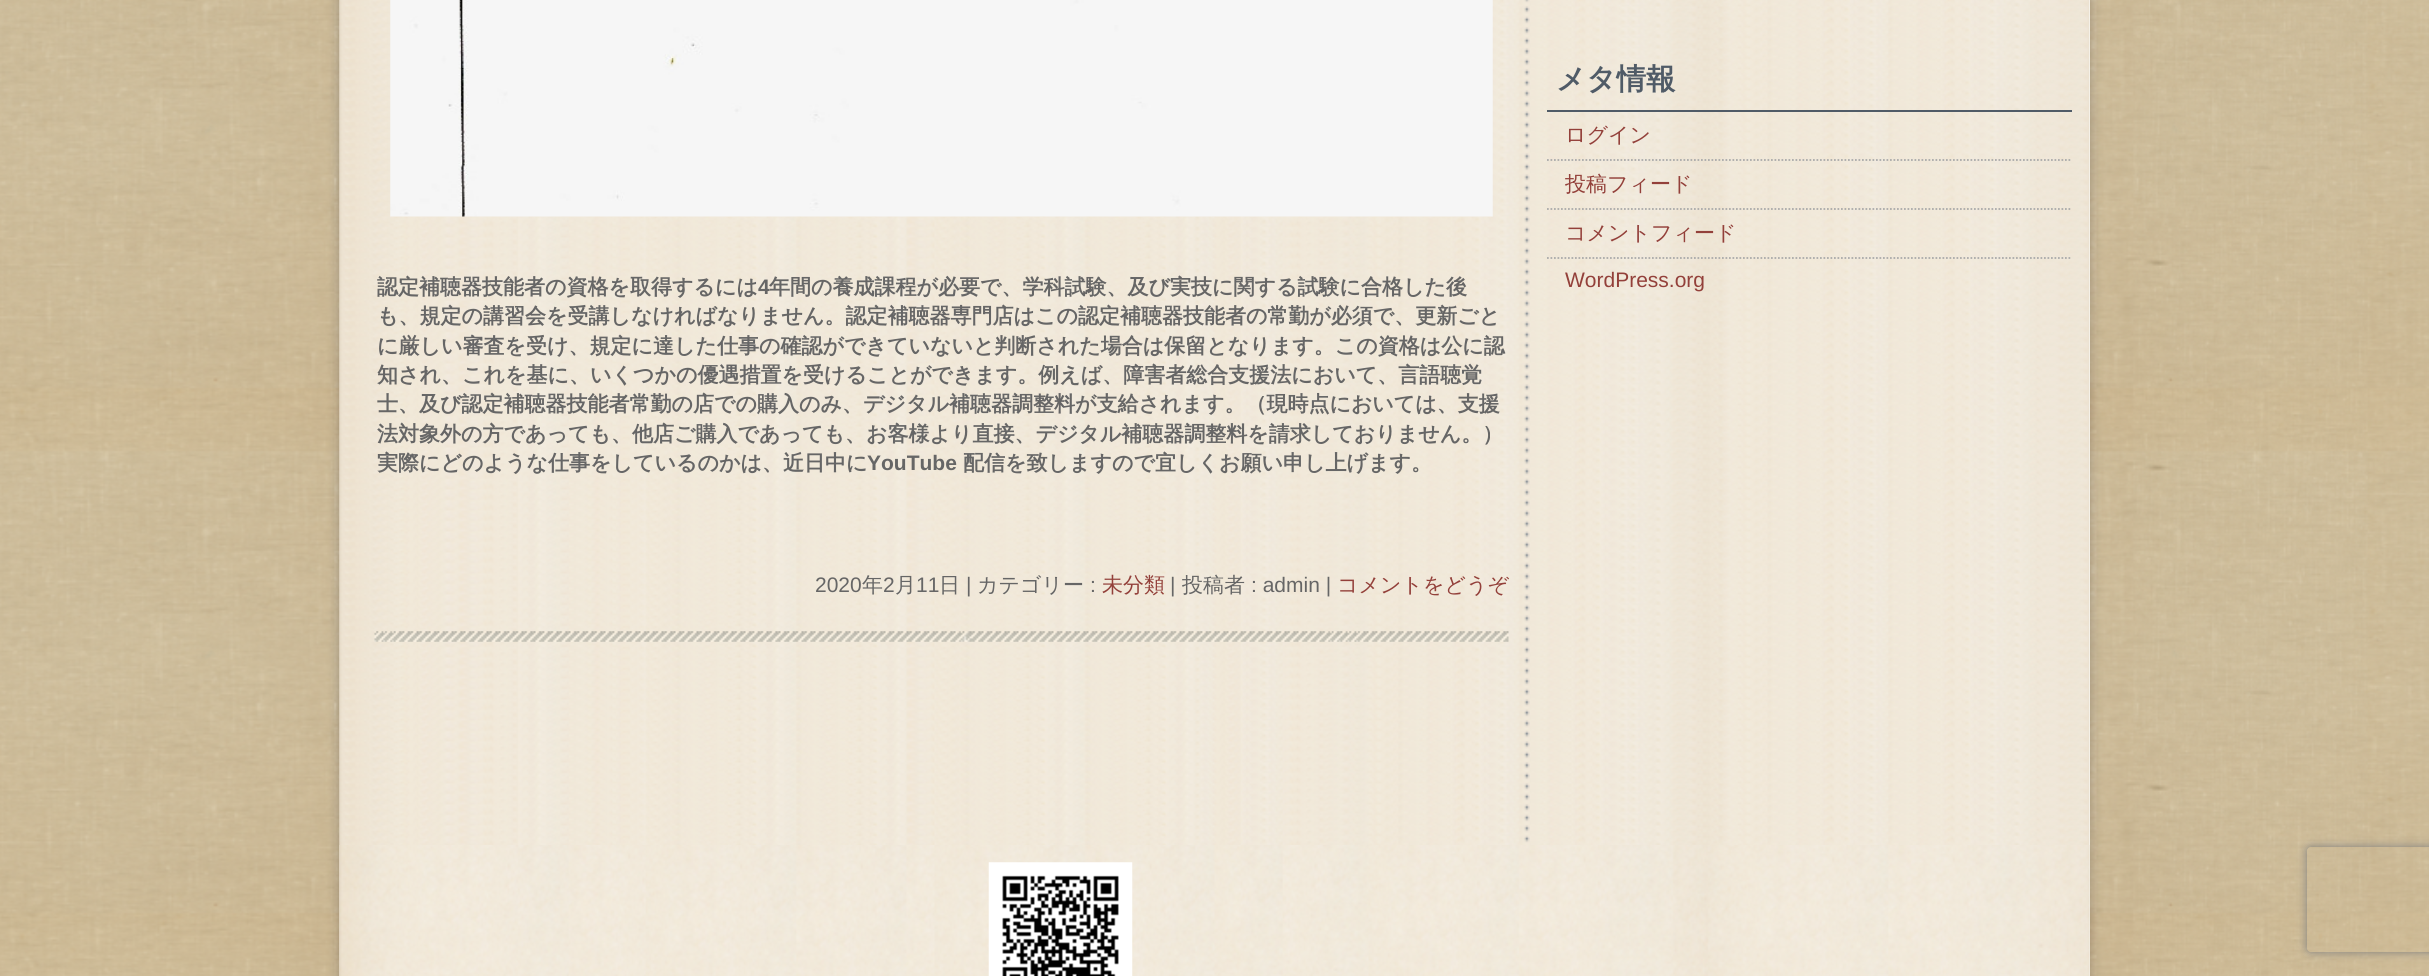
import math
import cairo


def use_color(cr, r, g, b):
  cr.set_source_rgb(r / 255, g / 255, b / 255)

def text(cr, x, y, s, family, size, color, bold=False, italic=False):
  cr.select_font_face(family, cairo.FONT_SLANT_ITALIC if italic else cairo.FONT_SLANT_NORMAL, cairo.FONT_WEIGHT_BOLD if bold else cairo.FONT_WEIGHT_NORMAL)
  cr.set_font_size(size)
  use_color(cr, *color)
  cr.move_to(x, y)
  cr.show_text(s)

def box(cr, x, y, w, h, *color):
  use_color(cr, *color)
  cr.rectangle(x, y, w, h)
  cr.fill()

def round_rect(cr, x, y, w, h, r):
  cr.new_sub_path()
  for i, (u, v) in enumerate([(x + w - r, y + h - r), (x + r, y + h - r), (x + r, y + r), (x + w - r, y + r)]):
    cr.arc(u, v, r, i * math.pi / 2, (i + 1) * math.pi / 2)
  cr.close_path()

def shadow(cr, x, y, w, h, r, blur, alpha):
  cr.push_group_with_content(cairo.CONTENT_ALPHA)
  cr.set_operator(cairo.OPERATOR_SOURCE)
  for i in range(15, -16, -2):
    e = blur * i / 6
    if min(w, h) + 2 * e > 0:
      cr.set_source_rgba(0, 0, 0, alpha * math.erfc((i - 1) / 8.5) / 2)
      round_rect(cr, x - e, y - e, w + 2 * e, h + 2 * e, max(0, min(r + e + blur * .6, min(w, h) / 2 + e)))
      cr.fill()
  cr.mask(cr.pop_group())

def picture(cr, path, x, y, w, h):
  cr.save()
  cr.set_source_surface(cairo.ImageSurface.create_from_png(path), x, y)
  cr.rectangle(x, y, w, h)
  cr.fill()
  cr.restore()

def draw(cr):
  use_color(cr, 255, 255, 255)
  cr.paint()
  picture(cr, "img_01.png", 0, 0, 2429, 976)
  box(cr, 2089, 0, 1, 976, 255, 255, 255)
  picture(cr, "img_02.png", 339, 0, 1751, 976)
  box(cr, 1547, 110, 525, 2, 80, 91, 103)
  cr.new_path()
  cr.move_to(1547, 160)
  cr.line_to(2072, 160)
  use_color(cr, 170, 170, 170)
  cr.set_line_width(1.8)
  cr.set_dash([1.75, 1.75])
  cr.stroke()
  cr.new_path()
  cr.move_to(1547, 209)
  cr.line_to(2072, 209)
  cr.stroke()
  cr.new_path()
  cr.move_to(1547, 258)
  cr.line_to(2072, 258)
  cr.stroke()
  picture(cr, "img_03.png", 374, 631, 1135, 11)
  picture(cr, "img_04.png", 390, 0, 1103, 217)
  picture(cr, "img_05.png", 339, 845, 1751, 131)
  picture(cr, "img_06.png", 988, 862, 145, 114)
  cr.save()
  cr.set_fill_rule(cairo.FILL_RULE_EVEN_ODD)
  cr.new_path()
  cr.move_to(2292, 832)
  cr.line_to(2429, 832)
  cr.line_to(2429, 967)
  cr.line_to(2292, 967)
  cr.close_path()
  cr.move_to(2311, 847)
  cr.line_to(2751, 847)
  cr.curve_to(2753, 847, 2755, 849, 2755, 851)
  cr.line_to(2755, 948)
  cr.curve_to(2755, 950, 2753, 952, 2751, 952)
  cr.line_to(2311, 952)
  cr.curve_to(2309, 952, 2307, 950, 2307, 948)
  cr.line_to(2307, 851)
  cr.curve_to(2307, 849, 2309, 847, 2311, 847)
  cr.close_path()
  cr.clip()
  use_color(cr, 128, 128, 128)
  shadow(cr, 2307, 847, 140, 105, 4, 4.5, 1)
  cr.restore()
  text(cr, 1556, 89, "メタ情報", "WenQuanYi Zen Hei", 29.5, (80, 91, 103), bold=True)
  text(cr, 1565, 142, "ログイン", "WenQuanYi Zen Hei Medium", 21, (147, 64, 58))
  text(cr, 1565, 191, "投稿フィード", "WenQuanYi Zen Hei Medium", 21, (147, 64, 58))
  text(cr, 1565, 240, "コメントフィード", "WenQuanYi Zen Hei Medium", 21, (147, 64, 58))
  text(cr, 1565, 287, "WordPress.org", "Liberation Sans", 21, (147, 64, 58))
  text(cr, 377, 294, "認定補聴器技能者の資格を取得するには", "WenQuanYi Zen Hei", 21, (102, 102, 102), bold=True)
  text(cr, 758, 294, "4", "Liberation Sans", 21, (102, 102, 102), bold=True)
  text(cr, 769, 294, "年間の養成課程が必要で、学科試験、及び実技に関する試験に合格した後", "WenQuanYi Zen Hei", 21, (102, 102, 102), bold=True)
  text(cr, 377, 323, "も、規定の講習会を受講しなければなりません。認定補聴器専門店はこの認定補聴器技能者の常勤が必須で、更新ごと", "WenQuanYi Zen Hei", 21, (102, 102, 102), bold=True)
  text(cr, 377, 353, "に厳しい審査を受け、規定に達した仕事の確認ができていないと判断された場合は保留となります。この資格は公に認", "WenQuanYi Zen Hei", 21, (102, 102, 102), bold=True)
  text(cr, 377, 382, "知され、これを基に、いくつかの優遇措置を受けることができます。例えば、障害者総合支援法において、言語聴覚", "WenQuanYi Zen Hei", 21, (102, 102, 102), bold=True)
  text(cr, 377, 411, "士、及び認定補聴器技能者常勤の店での購入のみ、デジタル補聴器調整料が支給されます。（現時点においては、支援", "WenQuanYi Zen Hei", 21, (102, 102, 102), bold=True)
  text(cr, 377, 441, "法対象外の方であっても、他店ご購入であっても、お客様より直接、デジタル補聴器調整料を請求しておりません。）", "WenQuanYi Zen Hei", 21, (102, 102, 102), bold=True)
  text(cr, 377, 470, "実際にどのような仕事をしているのかは、近日中に", "WenQuanYi Zen Hei", 21, (102, 102, 102), bold=True)
  text(cr, 867, 470, "YouTube", "Liberation Sans", 21, (102, 102, 102), bold=True)
  text(cr, 963, 470, "配信を致しますので宜しくお願い申し上げます。", "WenQuanYi Zen Hei", 21, (102, 102, 102), bold=True)
  text(cr, 815, 592, "2020", "Liberation Sans", 21, (102, 102, 102))
  text(cr, 862, 592, "年", "WenQuanYi Zen Hei Medium", 21, (102, 102, 102))
  text(cr, 883, 592, "2", "Liberation Sans", 21, (102, 102, 102))
  text(cr, 895, 592, "月", "WenQuanYi Zen Hei Medium", 21, (102, 102, 102))
  text(cr, 916, 592, "11", "Liberation Sans", 21, (102, 102, 102))
  text(cr, 939, 592, "日", "WenQuanYi Zen Hei Medium", 21, (102, 102, 102))
  text(cr, 966, 592, "|", "Liberation Sans", 21, (102, 102, 102))
  text(cr, 977, 592, "カテゴリー", "WenQuanYi Zen Hei Medium", 21, (102, 102, 102))
  text(cr, 1090, 592, ":", "Liberation Sans", 21, (102, 102, 102))
  text(cr, 1102, 592, "未分類", "WenQuanYi Zen Hei Medium", 21, (147, 64, 58))
  text(cr, 1170, 592, "|", "Liberation Sans", 21, (102, 102, 102))
  text(cr, 1182, 592, "投稿者", "WenQuanYi Zen Hei Medium", 21, (102, 102, 102))
  text(cr, 1251, 592, ": admin |", "Liberation Sans", 21, (102, 102, 102))
  text(cr, 1337, 592, "コメントをどうぞ", "WenQuanYi Zen Hei Medium", 21, (147, 64, 58))


surface = cairo.ImageSurface(cairo.FORMAT_RGB24, 2429, 976)
cr = cairo.Context(surface)
options = cairo.FontOptions()
options.set_hint_metrics(cairo.HINT_METRICS_OFF)
options.set_hint_style(cairo.HINT_STYLE_NONE)
cr.set_font_options(options)
cr.set_miter_limit(4)
draw(cr)
surface.write_to_png("out.png")
